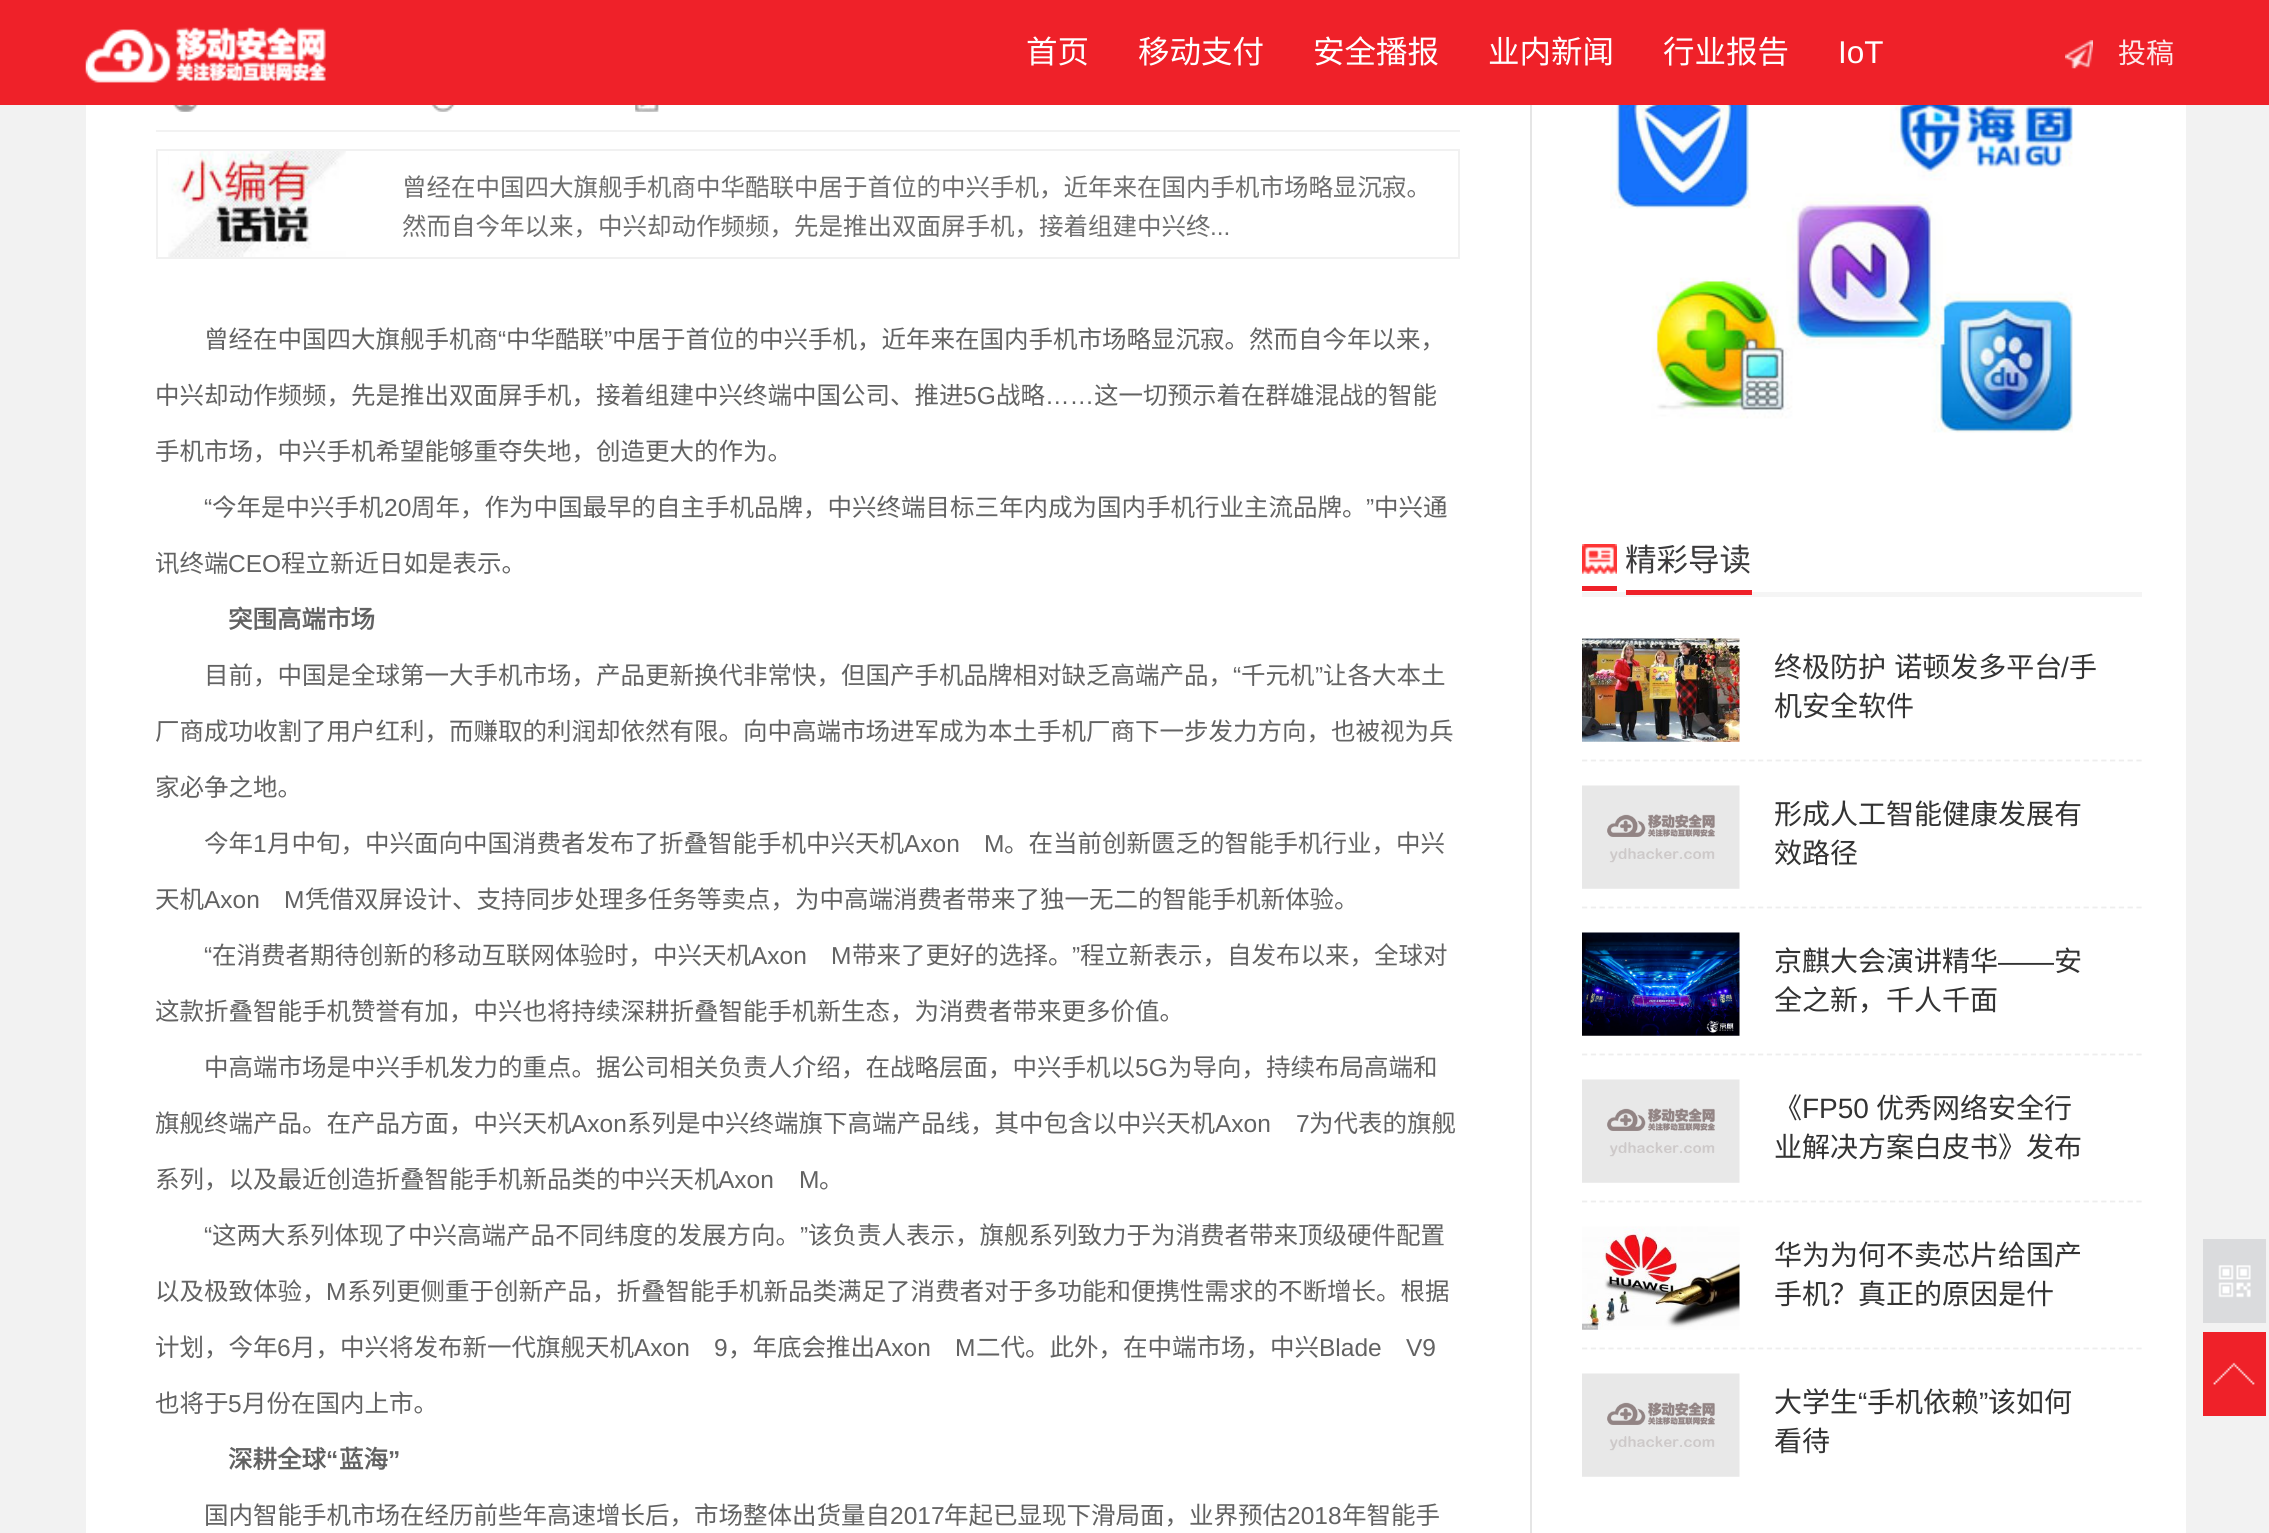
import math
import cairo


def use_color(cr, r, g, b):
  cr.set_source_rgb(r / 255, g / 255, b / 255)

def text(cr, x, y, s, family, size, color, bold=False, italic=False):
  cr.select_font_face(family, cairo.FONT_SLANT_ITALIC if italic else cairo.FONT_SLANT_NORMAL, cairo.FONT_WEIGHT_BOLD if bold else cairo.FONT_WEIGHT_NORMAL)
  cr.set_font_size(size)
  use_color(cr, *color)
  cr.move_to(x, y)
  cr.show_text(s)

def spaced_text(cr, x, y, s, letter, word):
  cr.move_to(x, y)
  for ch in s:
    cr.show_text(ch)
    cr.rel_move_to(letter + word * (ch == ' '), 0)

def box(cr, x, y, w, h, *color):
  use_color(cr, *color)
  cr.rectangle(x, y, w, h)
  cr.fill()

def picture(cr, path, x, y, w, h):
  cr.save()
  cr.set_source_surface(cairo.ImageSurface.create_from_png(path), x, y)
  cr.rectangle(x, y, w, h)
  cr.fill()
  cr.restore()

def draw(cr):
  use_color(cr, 242, 242, 242)
  cr.paint()
  box(cr, 0, 0, 2269, 105, 239, 33, 41)
  picture(cr, "img_01.png", 85, 27, 241, 56)
  picture(cr, "img_02.png", 2065, 40, 28, 29)
  box(cr, 86, 105, 2100, 1428, 255, 255, 255)
  box(cr, 1530, 105, 2, 1428, 229, 229, 229)
  box(cr, 156, 130, 1304, 2, 242, 242, 242)
  picture(cr, "img_03.png", 173, 105, 25, 7)
  picture(cr, "img_04.png", 431, 105, 24, 7)
  picture(cr, "img_05.png", 635, 105, 24, 7)
  picture(cr, "img_06.png", 168, 151, 178, 106)
  cr.rectangle(157, 150, 1302, 108)
  use_color(cr, 241, 241, 241)
  cr.stroke()
  picture(cr, "img_07.png", 1610, 105, 463, 328)
  box(cr, 1582, 592, 560, 5, 245, 245, 245)
  picture(cr, "img_08.png", 1582, 544, 35, 30)
  box(cr, 1582, 586, 35, 5, 239, 33, 41)
  box(cr, 1626, 590, 126, 5, 239, 33, 41)
  picture(cr, "img_09.png", 1582, 638, 158, 104)
  cr.new_path()
  cr.move_to(1582, 760.5)
  cr.line_to(2142, 760.5)
  use_color(cr, 238, 238, 238)
  cr.set_line_width(1.8)
  cr.set_dash([5.25, 3.55])
  cr.stroke()
  picture(cr, "img_10.png", 1582, 785, 158, 104)
  cr.new_path()
  cr.move_to(1582, 907.5)
  cr.line_to(2142, 907.5)
  cr.stroke()
  picture(cr, "img_11.png", 1582, 932, 158, 104)
  cr.new_path()
  cr.move_to(1582, 1054.5)
  cr.line_to(2142, 1054.5)
  cr.stroke()
  picture(cr, "img_10.png", 1582, 1079, 158, 104)
  cr.new_path()
  cr.move_to(1582, 1201.5)
  cr.line_to(2142, 1201.5)
  cr.stroke()
  picture(cr, "img_12.png", 1582, 1226, 158, 104)
  cr.new_path()
  cr.move_to(1582, 1348.5)
  cr.line_to(2142, 1348.5)
  cr.stroke()
  picture(cr, "img_10.png", 1582, 1373, 158, 104)
  box(cr, 2203, 1239, 63, 84, 218, 219, 221)
  picture(cr, "img_13.png", 2218, 1265, 33, 33)
  box(cr, 2203, 1332, 63, 84, 239, 33, 41)
  picture(cr, "img_14.png", 2213, 1362, 42, 23)
  text(cr, 1026, 63, "首页", "Noto Sans CJK SC", 31.5, (255, 255, 255))
  text(cr, 1138, 63, "移动支付", "Noto Sans CJK SC", 31.5, (255, 255, 255))
  text(cr, 1313, 63, "安全播报", "Noto Sans CJK SC", 31.5, (255, 255, 255))
  text(cr, 1488, 63, "业内新闻", "Noto Sans CJK SC", 31.5, (255, 255, 255))
  text(cr, 1663, 63, "行业报告", "Noto Sans CJK SC", 31.5, (255, 255, 255))
  text(cr, 1838, 63, "IoT", "Liberation Sans", 31.5, (255, 255, 255))
  text(cr, 2118, 63, "投稿", "Noto Sans CJK SC", 28, (253, 233, 234))
  text(cr, 402, 196, "曾经在中国四大旗舰手机商中华酷联中居于首位的中兴手机，近年来在国内手机市场略显沉寂。", "Noto Sans CJK SC", 24.5, (110, 110, 110))
  text(cr, 402, 235, "然而自今年以来，中兴却动作频频，先是推出双面屏手机，接着组建中兴终", "Noto Sans CJK SC", 24.5, (110, 110, 110))
  text(cr, 1210, 235, "...", "Liberation Sans", 24.5, (110, 110, 110))
  text(cr, 204, 348, "曾经在中国四大旗舰手机商", "Noto Sans CJK SC", 24.5, (98, 98, 98))
  text(cr, 498, 348, "“", "Liberation Sans", 24.5, (98, 98, 98))
  text(cr, 506, 348, "中华酷联", "Noto Sans CJK SC", 24.5, (98, 98, 98))
  text(cr, 604, 348, "”", "Liberation Sans", 24.5, (98, 98, 98))
  text(cr, 612, 348, "中居于首位的中兴手机，近年来在国内手机市场略显沉寂。然而自今年以来，", "Noto Sans CJK SC", 24.5, (98, 98, 98))
  text(cr, 155, 404, "中兴却动作频频，先是推出双面屏手机，接着组建中兴终端中国公司、推进", "Noto Sans CJK SC", 24.5, (98, 98, 98))
  text(cr, 963, 404, "5G", "Liberation Sans", 24.5, (98, 98, 98))
  text(cr, 996, 404, "战略", "Noto Sans CJK SC", 24.5, (98, 98, 98))
  text(cr, 1045, 404, "……", "Liberation Sans", 24.5, (98, 98, 98))
  text(cr, 1094, 404, "这一切预示着在群雄混战的智能", "Noto Sans CJK SC", 24.5, (98, 98, 98))
  text(cr, 155, 460, "手机市场，中兴手机希望能够重夺失地，创造更大的作为。", "Noto Sans CJK SC", 24.5, (98, 98, 98))
  text(cr, 204, 516, "“", "Liberation Sans", 24.5, (98, 98, 98))
  text(cr, 212, 516, "今年是中兴手机", "Noto Sans CJK SC", 24.5, (98, 98, 98))
  text(cr, 384, 516, "20", "Liberation Sans", 24.5, (98, 98, 98))
  text(cr, 411, 516, "周年，作为中国最早的自主手机品牌，中兴终端目标三年内成为国内手机行业主流品牌。", "Noto Sans CJK SC", 24.5, (98, 98, 98))
  text(cr, 1366, 516, "”", "Liberation Sans", 24.5, (98, 98, 98))
  text(cr, 1374, 516, "中兴通", "Noto Sans CJK SC", 24.5, (98, 98, 98))
  text(cr, 155, 572, "讯终端", "Noto Sans CJK SC", 24.5, (98, 98, 98))
  text(cr, 228, 572, "CEO", "Liberation Sans", 24.5, (98, 98, 98))
  text(cr, 281, 572, "程立新近日如是表示。", "Noto Sans CJK SC", 24.5, (98, 98, 98))
  text(cr, 228, 628, "突围高端市场", "Noto Sans CJK SC", 24.5, (98, 98, 98), bold=True)
  text(cr, 204, 684, "目前，中国是全球第一大手机市场，产品更新换代非常快，但国产手机品牌相对缺乏高端产品，", "Noto Sans CJK SC", 24.5, (98, 98, 98))
  text(cr, 1233, 684, "“", "Liberation Sans", 24.5, (98, 98, 98))
  text(cr, 1241, 684, "千元机", "Noto Sans CJK SC", 24.5, (98, 98, 98))
  text(cr, 1315, 684, "”", "Liberation Sans", 24.5, (98, 98, 98))
  text(cr, 1323, 684, "让各大本土", "Noto Sans CJK SC", 24.5, (98, 98, 98))
  text(cr, 155, 740, "厂商成功收割了用户红利，而赚取的利润却依然有限。向中高端市场进军成为本土手机厂商下一步发力方向，也被视为兵", "Noto Sans CJK SC", 24.5, (98, 98, 98))
  text(cr, 155, 796, "家必争之地。", "Noto Sans CJK SC", 24.5, (98, 98, 98))
  text(cr, 204, 852, "今年", "Noto Sans CJK SC", 24.5, (98, 98, 98))
  text(cr, 253, 852, "1", "Liberation Sans", 24.5, (98, 98, 98))
  text(cr, 267, 852, "月中旬，中兴面向中国消费者发布了折叠智能手机中兴天机", "Noto Sans CJK SC", 24.5, (98, 98, 98))
  text(cr, 904, 852, "Axon", "Liberation Sans", 24.5, (98, 98, 98))
  text(cr, 984, 852, "M", "Liberation Sans", 24.5, (98, 98, 98))
  text(cr, 1004, 852, "。在当前创新匮乏的智能手机行业，中兴", "Noto Sans CJK SC", 24.5, (98, 98, 98))
  text(cr, 155, 908, "天机", "Noto Sans CJK SC", 24.5, (98, 98, 98))
  text(cr, 204, 908, "Axon", "Liberation Sans", 24.5, (98, 98, 98))
  text(cr, 284, 908, "M", "Liberation Sans", 24.5, (98, 98, 98))
  text(cr, 305, 908, "凭借双屏设计、支持同步处理多任务等卖点，为中高端消费者带来了独一无二的智能手机新体验。", "Noto Sans CJK SC", 24.5, (98, 98, 98))
  text(cr, 204, 964, "“", "Liberation Sans", 24.5, (98, 98, 98))
  text(cr, 212, 964, "在消费者期待创新的移动互联网体验时，中兴天机", "Noto Sans CJK SC", 24.5, (98, 98, 98))
  text(cr, 751, 964, "Axon", "Liberation Sans", 24.5, (98, 98, 98))
  text(cr, 831, 964, "M", "Liberation Sans", 24.5, (98, 98, 98))
  text(cr, 852, 964, "带来了更好的选择。", "Noto Sans CJK SC", 24.5, (98, 98, 98))
  text(cr, 1072, 964, "”", "Liberation Sans", 24.5, (98, 98, 98))
  text(cr, 1080, 964, "程立新表示，自发布以来，全球对", "Noto Sans CJK SC", 24.5, (98, 98, 98))
  text(cr, 155, 1020, "这款折叠智能手机赞誉有加，中兴也将持续深耕折叠智能手机新生态，为消费者带来更多价值。", "Noto Sans CJK SC", 24.5, (98, 98, 98))
  text(cr, 204, 1076, "中高端市场是中兴手机发力的重点。据公司相关负责人介绍，在战略层面，中兴手机以", "Noto Sans CJK SC", 24.5, (98, 98, 98))
  text(cr, 1135, 1076, "5G", "Liberation Sans", 24.5, (98, 98, 98))
  text(cr, 1168, 1076, "为导向，持续布局高端和", "Noto Sans CJK SC", 24.5, (98, 98, 98))
  text(cr, 155, 1132, "旗舰终端产品。在产品方面，中兴天机", "Noto Sans CJK SC", 24.5, (98, 98, 98))
  text(cr, 571, 1132, "Axon", "Liberation Sans", 24.5, (98, 98, 98))
  text(cr, 627, 1132, "系列是中兴终端旗下高端产品线，其中包含以中兴天机", "Noto Sans CJK SC", 24.5, (98, 98, 98))
  text(cr, 1215, 1132, "Axon", "Liberation Sans", 24.5, (98, 98, 98))
  text(cr, 1296, 1132, "7", "Liberation Sans", 24.5, (98, 98, 98))
  text(cr, 1309, 1132, "为代表的旗舰", "Noto Sans CJK SC", 24.5, (98, 98, 98))
  text(cr, 155, 1188, "系列，以及最近创造折叠智能手机新品类的中兴天机", "Noto Sans CJK SC", 24.5, (98, 98, 98))
  text(cr, 718, 1188, "Axon", "Liberation Sans", 24.5, (98, 98, 98))
  text(cr, 799, 1188, "M", "Liberation Sans", 24.5, (98, 98, 98))
  text(cr, 819, 1188, "。", "Noto Sans CJK SC", 24.5, (98, 98, 98))
  text(cr, 204, 1244, "“", "Liberation Sans", 24.5, (98, 98, 98))
  text(cr, 212, 1244, "这两大系列体现了中兴高端产品不同纬度的发展方向。", "Noto Sans CJK SC", 24.5, (98, 98, 98))
  text(cr, 800, 1244, "”", "Liberation Sans", 24.5, (98, 98, 98))
  text(cr, 808, 1244, "该负责人表示，旗舰系列致力于为消费者带来顶级硬件配置", "Noto Sans CJK SC", 24.5, (98, 98, 98))
  text(cr, 155, 1300, "以及极致体验，", "Noto Sans CJK SC", 24.5, (98, 98, 98))
  text(cr, 326, 1300, "M", "Liberation Sans", 24.5, (98, 98, 98))
  text(cr, 347, 1300, "系列更侧重于创新产品，折叠智能手机新品类满足了消费者对于多功能和便携性需求的不断增长。根据", "Noto Sans CJK SC", 24.5, (98, 98, 98))
  text(cr, 155, 1356, "计划，今年", "Noto Sans CJK SC", 24.5, (98, 98, 98))
  text(cr, 277, 1356, "6", "Liberation Sans", 24.5, (98, 98, 98))
  text(cr, 291, 1356, "月，中兴将发布新一代旗舰天机", "Noto Sans CJK SC", 24.5, (98, 98, 98))
  text(cr, 634, 1356, "Axon", "Liberation Sans", 24.5, (98, 98, 98))
  text(cr, 714, 1356, "9", "Liberation Sans", 24.5, (98, 98, 98))
  text(cr, 728, 1356, "，年底会推出", "Noto Sans CJK SC", 24.5, (98, 98, 98))
  text(cr, 875, 1356, "Axon", "Liberation Sans", 24.5, (98, 98, 98))
  text(cr, 955, 1356, "M", "Liberation Sans", 24.5, (98, 98, 98))
  text(cr, 976, 1356, "二代。此外，在中端市场，中兴", "Noto Sans CJK SC", 24.5, (98, 98, 98))
  text(cr, 1319, 1356, "Blade", "Liberation Sans", 24.5, (98, 98, 98))
  text(cr, 1406, 1356, "V9", "Liberation Sans", 24.5, (98, 98, 98))
  text(cr, 155, 1412, "也将于", "Noto Sans CJK SC", 24.5, (98, 98, 98))
  text(cr, 228, 1412, "5", "Liberation Sans", 24.5, (98, 98, 98))
  text(cr, 242, 1412, "月份在国内上市。", "Noto Sans CJK SC", 24.5, (98, 98, 98))
  text(cr, 228, 1468, "深耕全球", "Noto Sans CJK SC", 24.5, (98, 98, 98), bold=True)
  text(cr, 326, 1468, "“", "Liberation Sans", 24.5, (98, 98, 98), bold=True)
  text(cr, 339, 1468, "蓝海", "Noto Sans CJK SC", 24.5, (98, 98, 98), bold=True)
  text(cr, 388, 1468, "”", "Liberation Sans", 24.5, (98, 98, 98), bold=True)
  text(cr, 204, 1524, "国内智能手机市场在经历前些年高速增长后，市场整体出货量自", "Noto Sans CJK SC", 24.5, (98, 98, 98))
  text(cr, 890, 1524, "2017", "Liberation Sans", 24.5, (98, 98, 98))
  text(cr, 944, 1524, "年起已显现下滑局面，业界预估", "Noto Sans CJK SC", 24.5, (98, 98, 98))
  text(cr, 1287, 1524, "2018", "Liberation Sans", 24.5, (98, 98, 98))
  text(cr, 1342, 1524, "年智能手", "Noto Sans CJK SC", 24.5, (98, 98, 98))
  text(cr, 1625, 571, "精彩导读", "Noto Sans CJK SC", 31.5, (60, 59, 60))
  cr.set_font_size(28)
  use_color(cr, 51, 51, 51)
  spaced_text(cr, 1774, 677, "终极防护 诺顿发多平台", 0, 2)
  text(cr, 2061, 677, "/", "Liberation Sans", 28, (51, 51, 51))
  text(cr, 2069, 677, "手", "Noto Sans CJK SC", 28, (51, 51, 51))
  text(cr, 1774, 716, "机安全软件", "Noto Sans CJK SC", 28, (51, 51, 51))
  text(cr, 1774, 824, "形成人工智能健康发展有", "Noto Sans CJK SC", 28, (51, 51, 51))
  text(cr, 1774, 863, "效路径", "Noto Sans CJK SC", 28, (51, 51, 51))
  text(cr, 1774, 971, "京麒大会演讲精华", "Noto Sans CJK SC", 28, (51, 51, 51))
  text(cr, 1998, 971, "——", "Liberation Sans", 28, (51, 51, 51))
  text(cr, 2054, 971, "安", "Noto Sans CJK SC", 28, (51, 51, 51))
  text(cr, 1774, 1010, "全之新，千人千面", "Noto Sans CJK SC", 28, (51, 51, 51))
  text(cr, 1774, 1118, "《", "Noto Sans CJK SC", 28, (51, 51, 51))
  text(cr, 1802, 1118, "FP50", "Liberation Sans", 28, (51, 51, 51))
  text(cr, 1876, 1118, "优秀网络安全行", "Noto Sans CJK SC", 28, (51, 51, 51))
  text(cr, 1774, 1157, "业解决方案白皮书》发布", "Noto Sans CJK SC", 28, (51, 51, 51))
  text(cr, 1774, 1265, "华为为何不卖芯片给国产", "Noto Sans CJK SC", 28, (51, 51, 51))
  text(cr, 1774, 1304, "手机？真正的原因是什", "Noto Sans CJK SC", 28, (51, 51, 51))
  text(cr, 1774, 1412, "大学生", "Noto Sans CJK SC", 28, (51, 51, 51))
  text(cr, 1858, 1412, "“", "Liberation Sans", 28, (51, 51, 51))
  text(cr, 1867, 1412, "手机依赖", "Noto Sans CJK SC", 28, (51, 51, 51))
  text(cr, 1979, 1412, "”", "Liberation Sans", 28, (51, 51, 51))
  text(cr, 1988, 1412, "该如何", "Noto Sans CJK SC", 28, (51, 51, 51))
  text(cr, 1774, 1451, "看待", "Noto Sans CJK SC", 28, (51, 51, 51))


surface = cairo.ImageSurface(cairo.FORMAT_RGB24, 2269, 1533)
cr = cairo.Context(surface)
options = cairo.FontOptions()
options.set_hint_metrics(cairo.HINT_METRICS_OFF)
options.set_hint_style(cairo.HINT_STYLE_NONE)
cr.set_font_options(options)
cr.set_miter_limit(4)
draw(cr)
surface.write_to_png("out.png")
